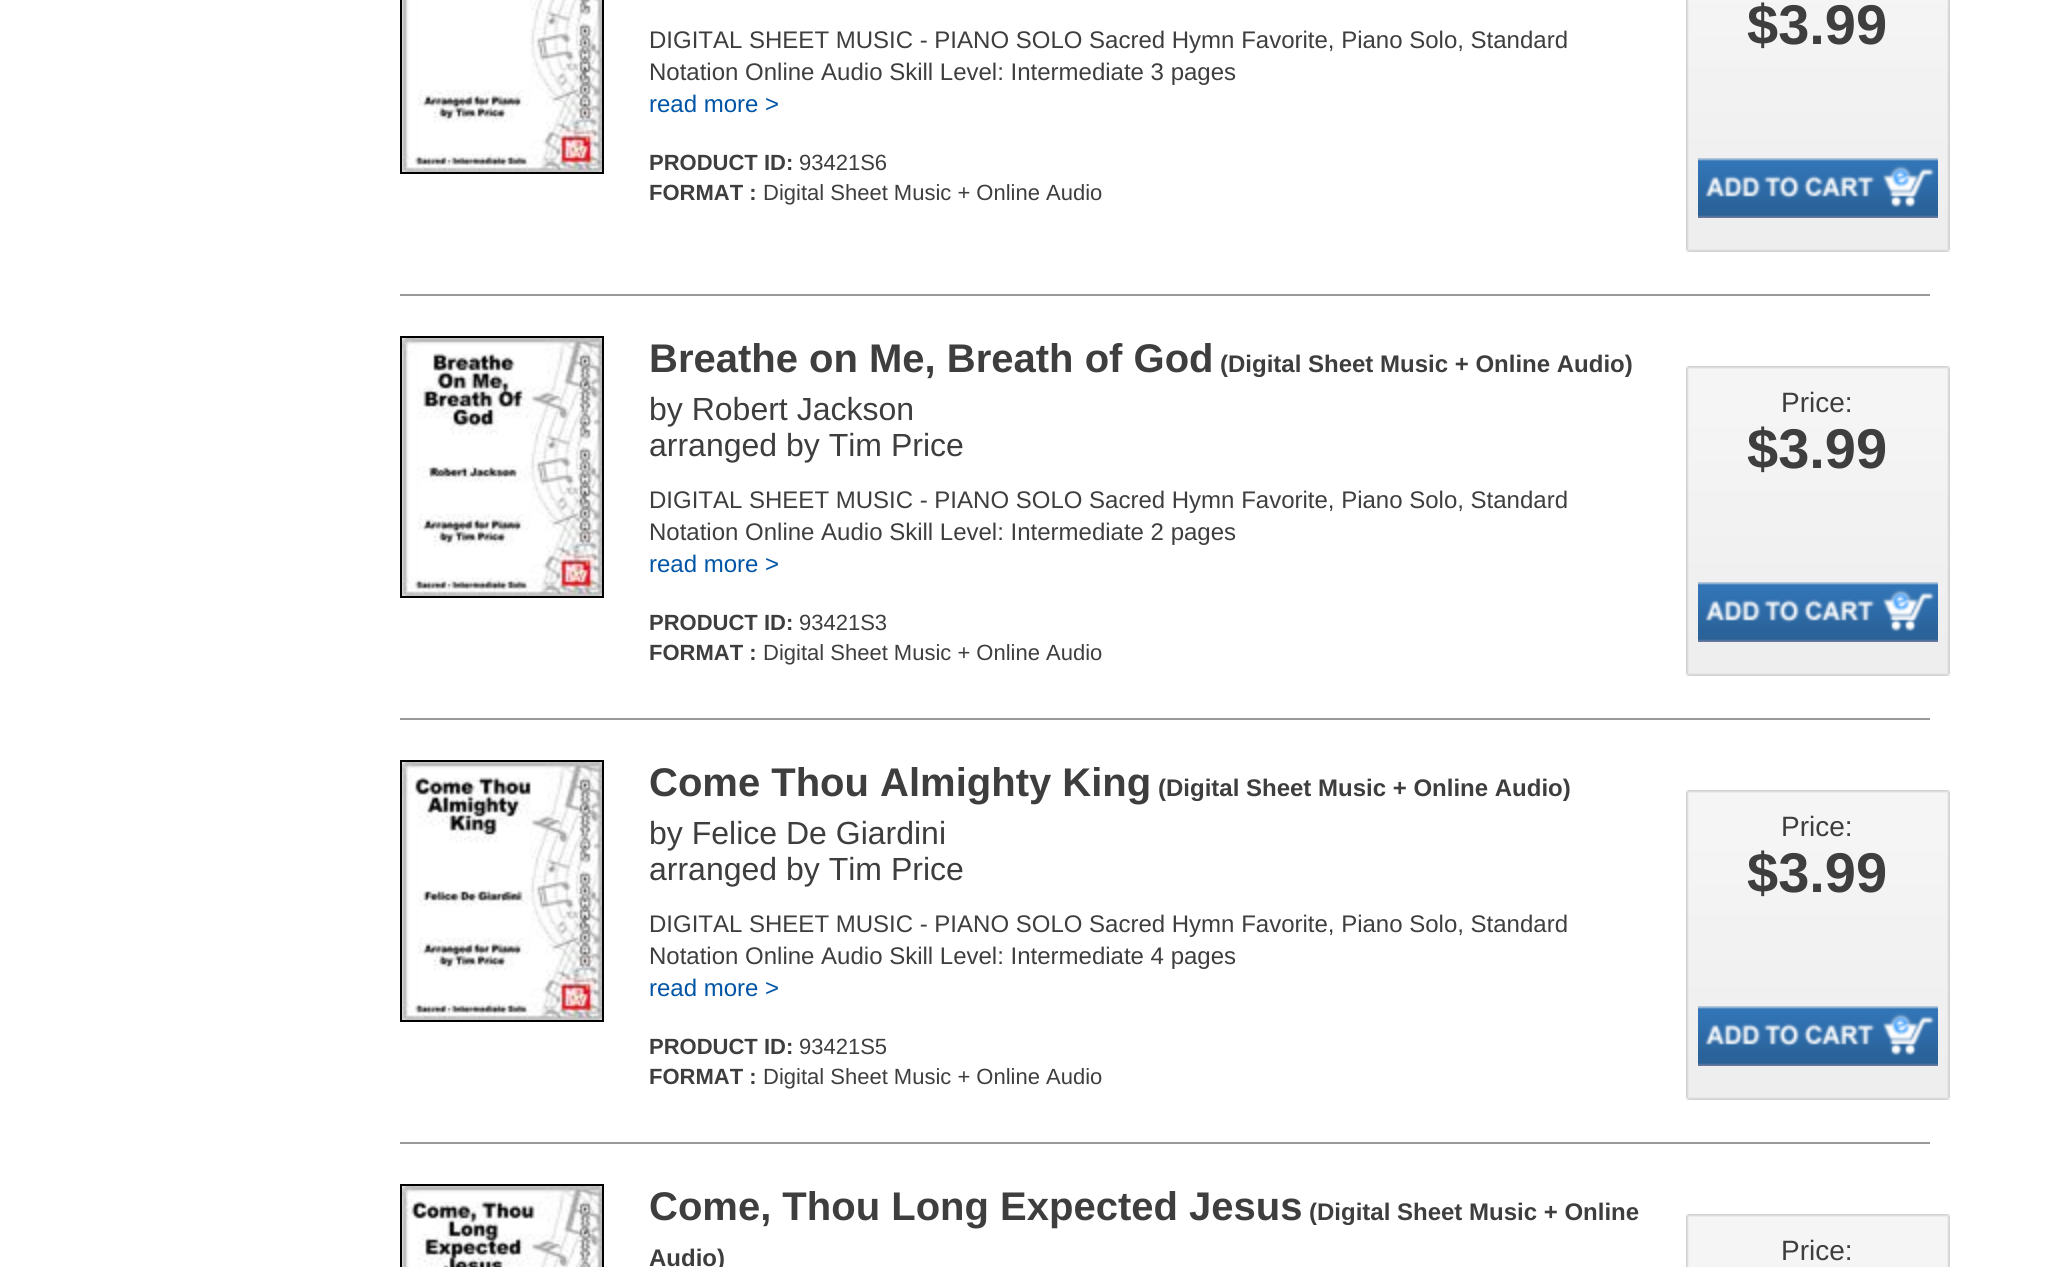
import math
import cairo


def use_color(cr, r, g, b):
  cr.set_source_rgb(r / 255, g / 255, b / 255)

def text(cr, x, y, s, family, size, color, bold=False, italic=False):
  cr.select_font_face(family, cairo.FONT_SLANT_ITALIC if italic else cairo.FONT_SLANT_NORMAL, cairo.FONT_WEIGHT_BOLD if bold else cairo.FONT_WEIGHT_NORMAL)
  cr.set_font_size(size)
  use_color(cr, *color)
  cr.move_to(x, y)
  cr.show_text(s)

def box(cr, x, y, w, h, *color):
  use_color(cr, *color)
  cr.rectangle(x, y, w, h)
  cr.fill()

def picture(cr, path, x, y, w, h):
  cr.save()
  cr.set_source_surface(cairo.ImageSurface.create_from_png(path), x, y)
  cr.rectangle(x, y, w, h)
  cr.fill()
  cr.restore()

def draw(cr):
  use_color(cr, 255, 255, 255)
  cr.paint()
  cr.rectangle(401, -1, 202, 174)
  use_color(cr, 0, 0, 0)
  cr.stroke()
  picture(cr, "img_01.png", 402, 0, 200, 172)
  picture(cr, "img_02.png", 1686, 0, 264, 252)
  picture(cr, "img_03.png", 1698, 158, 240, 60)
  box(cr, 400, 294, 1530, 2, 153, 153, 153)
  cr.rectangle(401, 337, 202, 260)
  use_color(cr, 0, 0, 0)
  cr.stroke()
  picture(cr, "img_04.png", 402, 338, 200, 258)
  picture(cr, "img_05.png", 1686, 366, 264, 310)
  picture(cr, "img_03.png", 1698, 582, 240, 60)
  box(cr, 400, 718, 1530, 2, 153, 153, 153)
  cr.rectangle(401, 761, 202, 260)
  use_color(cr, 0, 0, 0)
  cr.stroke()
  picture(cr, "img_06.png", 402, 762, 200, 258)
  picture(cr, "img_05.png", 1686, 790, 264, 310)
  picture(cr, "img_03.png", 1698, 1006, 240, 60)
  box(cr, 400, 1142, 1530, 2, 153, 153, 153)
  cr.rectangle(401, 1185, 202, 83)
  use_color(cr, 0, 0, 0)
  cr.stroke()
  picture(cr, "img_07.png", 402, 1186, 200, 81)
  picture(cr, "img_08.png", 1686, 1214, 264, 53)
  text(cr, 649, 48, "DIGITAL SHEET MUSIC - PIANO SOLO Sacred Hymn Favorite, Piano Solo, Standard", "Liberation Sans", 24, (62, 62, 62))
  text(cr, 649, 80, "Notation Online Audio Skill Level: Intermediate 3 pages", "Liberation Sans", 24, (62, 62, 62))
  text(cr, 649, 112, "read more >", "Liberation Sans", 24, (0, 84, 166))
  text(cr, 649, 170, "PRODUCT ID:", "Liberation Sans", 22, (62, 62, 62), bold=True)
  text(cr, 799, 170, "93421S6", "Liberation Sans", 22, (62, 62, 62))
  text(cr, 649, 200, "FORMAT :", "Liberation Sans", 22, (62, 62, 62), bold=True)
  text(cr, 763, 200, "Digital Sheet Music + Online Audio", "Liberation Sans", 22, (62, 62, 62))
  text(cr, 1747, 44, "$3.99", "Liberation Sans", 56, (62, 62, 62), bold=True)
  text(cr, 649, 372, "Breathe on Me, Breath of God", "Liberation Sans", 40, (62, 62, 62), bold=True)
  text(cr, 1220, 372, "(Digital Sheet Music + Online Audio)", "Liberation Sans", 24, (62, 62, 62), bold=True)
  text(cr, 649, 420, "by Robert Jackson", "Liberation Sans", 32, (62, 62, 62))
  text(cr, 649, 456, "arranged by Tim Price", "Liberation Sans", 32, (62, 62, 62))
  text(cr, 649, 508, "DIGITAL SHEET MUSIC - PIANO SOLO Sacred Hymn Favorite, Piano Solo, Standard", "Liberation Sans", 24, (62, 62, 62))
  text(cr, 649, 540, "Notation Online Audio Skill Level: Intermediate 2 pages", "Liberation Sans", 24, (62, 62, 62))
  text(cr, 649, 572, "read more >", "Liberation Sans", 24, (0, 84, 166))
  text(cr, 649, 630, "PRODUCT ID:", "Liberation Sans", 22, (62, 62, 62), bold=True)
  text(cr, 799, 630, "93421S3", "Liberation Sans", 22, (62, 62, 62))
  text(cr, 649, 660, "FORMAT :", "Liberation Sans", 22, (62, 62, 62), bold=True)
  text(cr, 763, 660, "Digital Sheet Music + Online Audio", "Liberation Sans", 22, (62, 62, 62))
  text(cr, 1781, 412, "Price:", "Liberation Sans", 28, (62, 62, 62))
  text(cr, 1747, 468, "$3.99", "Liberation Sans", 56, (62, 62, 62), bold=True)
  text(cr, 649, 796, "Come Thou Almighty King", "Liberation Sans", 40, (62, 62, 62), bold=True)
  text(cr, 1158, 796, "(Digital Sheet Music + Online Audio)", "Liberation Sans", 24, (62, 62, 62), bold=True)
  text(cr, 649, 844, "by Felice De Giardini", "Liberation Sans", 32, (62, 62, 62))
  text(cr, 649, 880, "arranged by Tim Price", "Liberation Sans", 32, (62, 62, 62))
  text(cr, 649, 932, "DIGITAL SHEET MUSIC - PIANO SOLO Sacred Hymn Favorite, Piano Solo, Standard", "Liberation Sans", 24, (62, 62, 62))
  text(cr, 649, 964, "Notation Online Audio Skill Level: Intermediate 4 pages", "Liberation Sans", 24, (62, 62, 62))
  text(cr, 649, 996, "read more >", "Liberation Sans", 24, (0, 84, 166))
  text(cr, 649, 1054, "PRODUCT ID:", "Liberation Sans", 22, (62, 62, 62), bold=True)
  text(cr, 799, 1054, "93421S5", "Liberation Sans", 22, (62, 62, 62))
  text(cr, 649, 1084, "FORMAT :", "Liberation Sans", 22, (62, 62, 62), bold=True)
  text(cr, 763, 1084, "Digital Sheet Music + Online Audio", "Liberation Sans", 22, (62, 62, 62))
  text(cr, 1781, 836, "Price:", "Liberation Sans", 28, (62, 62, 62))
  text(cr, 1747, 892, "$3.99", "Liberation Sans", 56, (62, 62, 62), bold=True)
  text(cr, 649, 1220, "Come, Thou Long Expected Jesus", "Liberation Sans", 40, (62, 62, 62), bold=True)
  text(cr, 1309, 1220, "(Digital Sheet Music + Online", "Liberation Sans", 24, (62, 62, 62), bold=True)
  text(cr, 649, 1266, "Audio)", "Liberation Sans", 24, (62, 62, 62), bold=True)
  text(cr, 1781, 1260, "Price:", "Liberation Sans", 28, (62, 62, 62))


surface = cairo.ImageSurface(cairo.FORMAT_RGB24, 2048, 1267)
cr = cairo.Context(surface)
options = cairo.FontOptions()
options.set_hint_metrics(cairo.HINT_METRICS_OFF)
options.set_hint_style(cairo.HINT_STYLE_NONE)
cr.set_font_options(options)
cr.set_miter_limit(4)
draw(cr)
surface.write_to_png("out.png")
